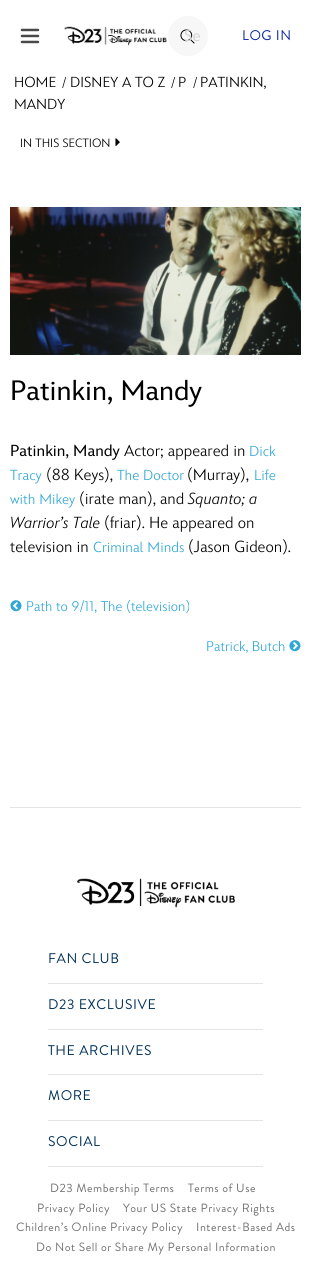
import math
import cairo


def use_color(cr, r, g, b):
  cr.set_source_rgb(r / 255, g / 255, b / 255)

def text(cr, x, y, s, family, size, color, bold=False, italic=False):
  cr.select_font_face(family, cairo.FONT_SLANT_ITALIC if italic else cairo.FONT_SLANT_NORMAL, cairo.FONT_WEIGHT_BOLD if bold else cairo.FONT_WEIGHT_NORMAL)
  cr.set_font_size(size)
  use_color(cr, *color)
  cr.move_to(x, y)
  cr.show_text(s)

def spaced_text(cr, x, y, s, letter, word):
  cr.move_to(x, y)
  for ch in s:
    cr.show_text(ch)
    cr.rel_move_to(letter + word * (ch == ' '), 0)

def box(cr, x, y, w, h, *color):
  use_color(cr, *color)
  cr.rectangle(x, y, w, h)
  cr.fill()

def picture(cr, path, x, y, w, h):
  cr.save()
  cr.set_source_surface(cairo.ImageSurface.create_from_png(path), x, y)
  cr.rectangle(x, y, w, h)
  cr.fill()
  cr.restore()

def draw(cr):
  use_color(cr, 255, 255, 255)
  cr.paint()
  picture(cr, "img_01.png", 20, 28, 20, 16)
  picture(cr, "img_02.png", 64, 26, 103, 20)
  use_color(cr, 247, 247, 247)
  cr.arc(188, 36, 20, 0, 2 * math.pi)
  cr.fill()
  picture(cr, "img_03.png", 180, 29, 15, 15)
  picture(cr, "img_04.png", 115, 138, 5, 8)
  picture(cr, "img_05.png", 10, 207, 291, 148)
  picture(cr, "img_06.png", 10, 600, 12, 12)
  picture(cr, "img_07.png", 289, 640, 12, 12)
  box(cr, 10, 807, 291, 1, 228, 228, 228)
  picture(cr, "img_08.png", 77, 878, 158, 30)
  box(cr, 48, 983, 215, 1, 228, 228, 228)
  box(cr, 48, 1029, 215, 1, 228, 228, 228)
  box(cr, 48, 1074, 215, 1, 228, 228, 228)
  box(cr, 48, 1120, 215, 1, 228, 228, 228)
  box(cr, 48, 1166, 215, 1, 228, 228, 228)
  text(cr, 184, 41, "Se", "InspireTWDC", 16, (212, 212, 212))
  cr.select_font_face("Brandon Grotesque")
  cr.set_font_size(14)
  use_color(cr, 15, 37, 162)
  spaced_text(cr, 242, 40, "LOG IN", 0.5, 0)
  text(cr, 14, 87, "HOME", "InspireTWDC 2 Light", 14.5, (0, 0, 0))
  text(cr, 62, 87, "/", "InspireTWDC 2 Light", 13, (0, 0, 0))
  text(cr, 70, 87, "DISNEY A TO Z", "InspireTWDC 2 Light", 14.5, (0, 0, 0))
  text(cr, 171, 87, "/", "InspireTWDC 2 Light", 13, (0, 0, 0))
  text(cr, 178, 87, "P", "InspireTWDC 2 Light", 14.5, (0, 0, 0))
  text(cr, 193, 87, "/", "InspireTWDC 2 Light", 13, (0, 0, 0))
  text(cr, 200, 87, "PATINKIN,", "InspireTWDC 2 Light", 14.5, (0, 0, 0))
  text(cr, 14, 109, "MANDY", "InspireTWDC 2 Light", 14.5, (0, 0, 0))
  text(cr, 20, 147, "IN THIS SECTION", "InspireTWDC 2 Light", 12, (0, 0, 0))
  text(cr, 10, 400, "Patinkin, Mandy", "InspireTWDC", 28, (0, 0, 0))
  text(cr, 10, 456, "Patinkin, Mandy", "InspireTWDC", 16, (0, 0, 0))
  text(cr, 124, 456, "Actor; appeared in", "InspireTWDC 2 Light", 16, (0, 0, 0))
  text(cr, 249, 456, "Dick", "InspireTWDC 2 Light", 14.5, (49, 167, 215))
  text(cr, 10, 480, "Tracy", "InspireTWDC 2 Light", 14.5, (49, 167, 215))
  text(cr, 46, 480, "(88 Keys),", "InspireTWDC 2 Light", 16, (0, 0, 0))
  text(cr, 117, 480, "The Doctor", "InspireTWDC 2 Light", 14.5, (49, 167, 215))
  text(cr, 187, 480, "(Murray),", "InspireTWDC 2 Light", 16, (0, 0, 0))
  text(cr, 254, 480, "Life", "InspireTWDC 2 Light", 14.5, (49, 167, 215))
  text(cr, 10, 504, "with Mikey", "InspireTWDC 2 Light", 14.5, (49, 167, 215))
  text(cr, 79, 504, "(irate man), and", "InspireTWDC 2 Light", 16, (0, 0, 0))
  text(cr, 188, 504, "Squanto; a", "InspireTWDC Light", 16, (0, 0, 0), italic=True)
  text(cr, 10, 528, "Warrior’s Tale", "InspireTWDC Light", 16, (0, 0, 0), italic=True)
  text(cr, 104, 528, "(friar). He appeared on", "InspireTWDC 2 Light", 16, (0, 0, 0))
  text(cr, 10, 552, "television in", "InspireTWDC 2 Light", 16, (0, 0, 0))
  text(cr, 93, 552, "Criminal Minds", "InspireTWDC 2 Light", 14.5, (49, 167, 215))
  text(cr, 188, 552, "(Jason Gideon).", "InspireTWDC 2 Light", 16, (0, 0, 0))
  text(cr, 26, 611, "Path to 9/11, The (television)", "InspireTWDC Light", 14, (49, 167, 215))
  text(cr, 206, 651, "Patrick, Butch", "InspireTWDC Light", 14, (49, 167, 215))
  cr.select_font_face("Brandon Grotesque")
  use_color(cr, 0, 48, 87)
  spaced_text(cr, 48, 963, "FAN CLUB", 0.6, 0)
  spaced_text(cr, 48, 1009, "D23 EXCLUSIVE", 0.6, 0)
  spaced_text(cr, 48, 1055, "THE ARCHIVES", 0.6, 0)
  spaced_text(cr, 48, 1100, "MORE", 0.6, 0)
  spaced_text(cr, 48, 1146, "SOCIAL", 0.6, 0)
  cr.set_font_size(12)
  use_color(cr, 113, 113, 113)
  spaced_text(cr, 50, 1192, "D23 Membership Terms", 0.5, 0)
  spaced_text(cr, 188, 1192, "Terms of Use", 0.5, 0)
  spaced_text(cr, 37, 1212, "Privacy Policy", 0.5, 0)
  spaced_text(cr, 123, 1212, "Your US State Privacy Rights", 0.5, 0)
  spaced_text(cr, 16, 1231, "Children’s Online Privacy Policy", 0.5, 0)
  spaced_text(cr, 196, 1231, "Interest-Based Ads", 0.5, 0)
  spaced_text(cr, 36, 1251, "Do Not Sell or Share My Personal Information", 0.5, 0)


surface = cairo.ImageSurface(cairo.FORMAT_RGB24, 311, 1266)
cr = cairo.Context(surface)
options = cairo.FontOptions()
options.set_hint_metrics(cairo.HINT_METRICS_OFF)
options.set_hint_style(cairo.HINT_STYLE_NONE)
cr.set_font_options(options)
cr.set_miter_limit(4)
draw(cr)
surface.write_to_png("out.png")
